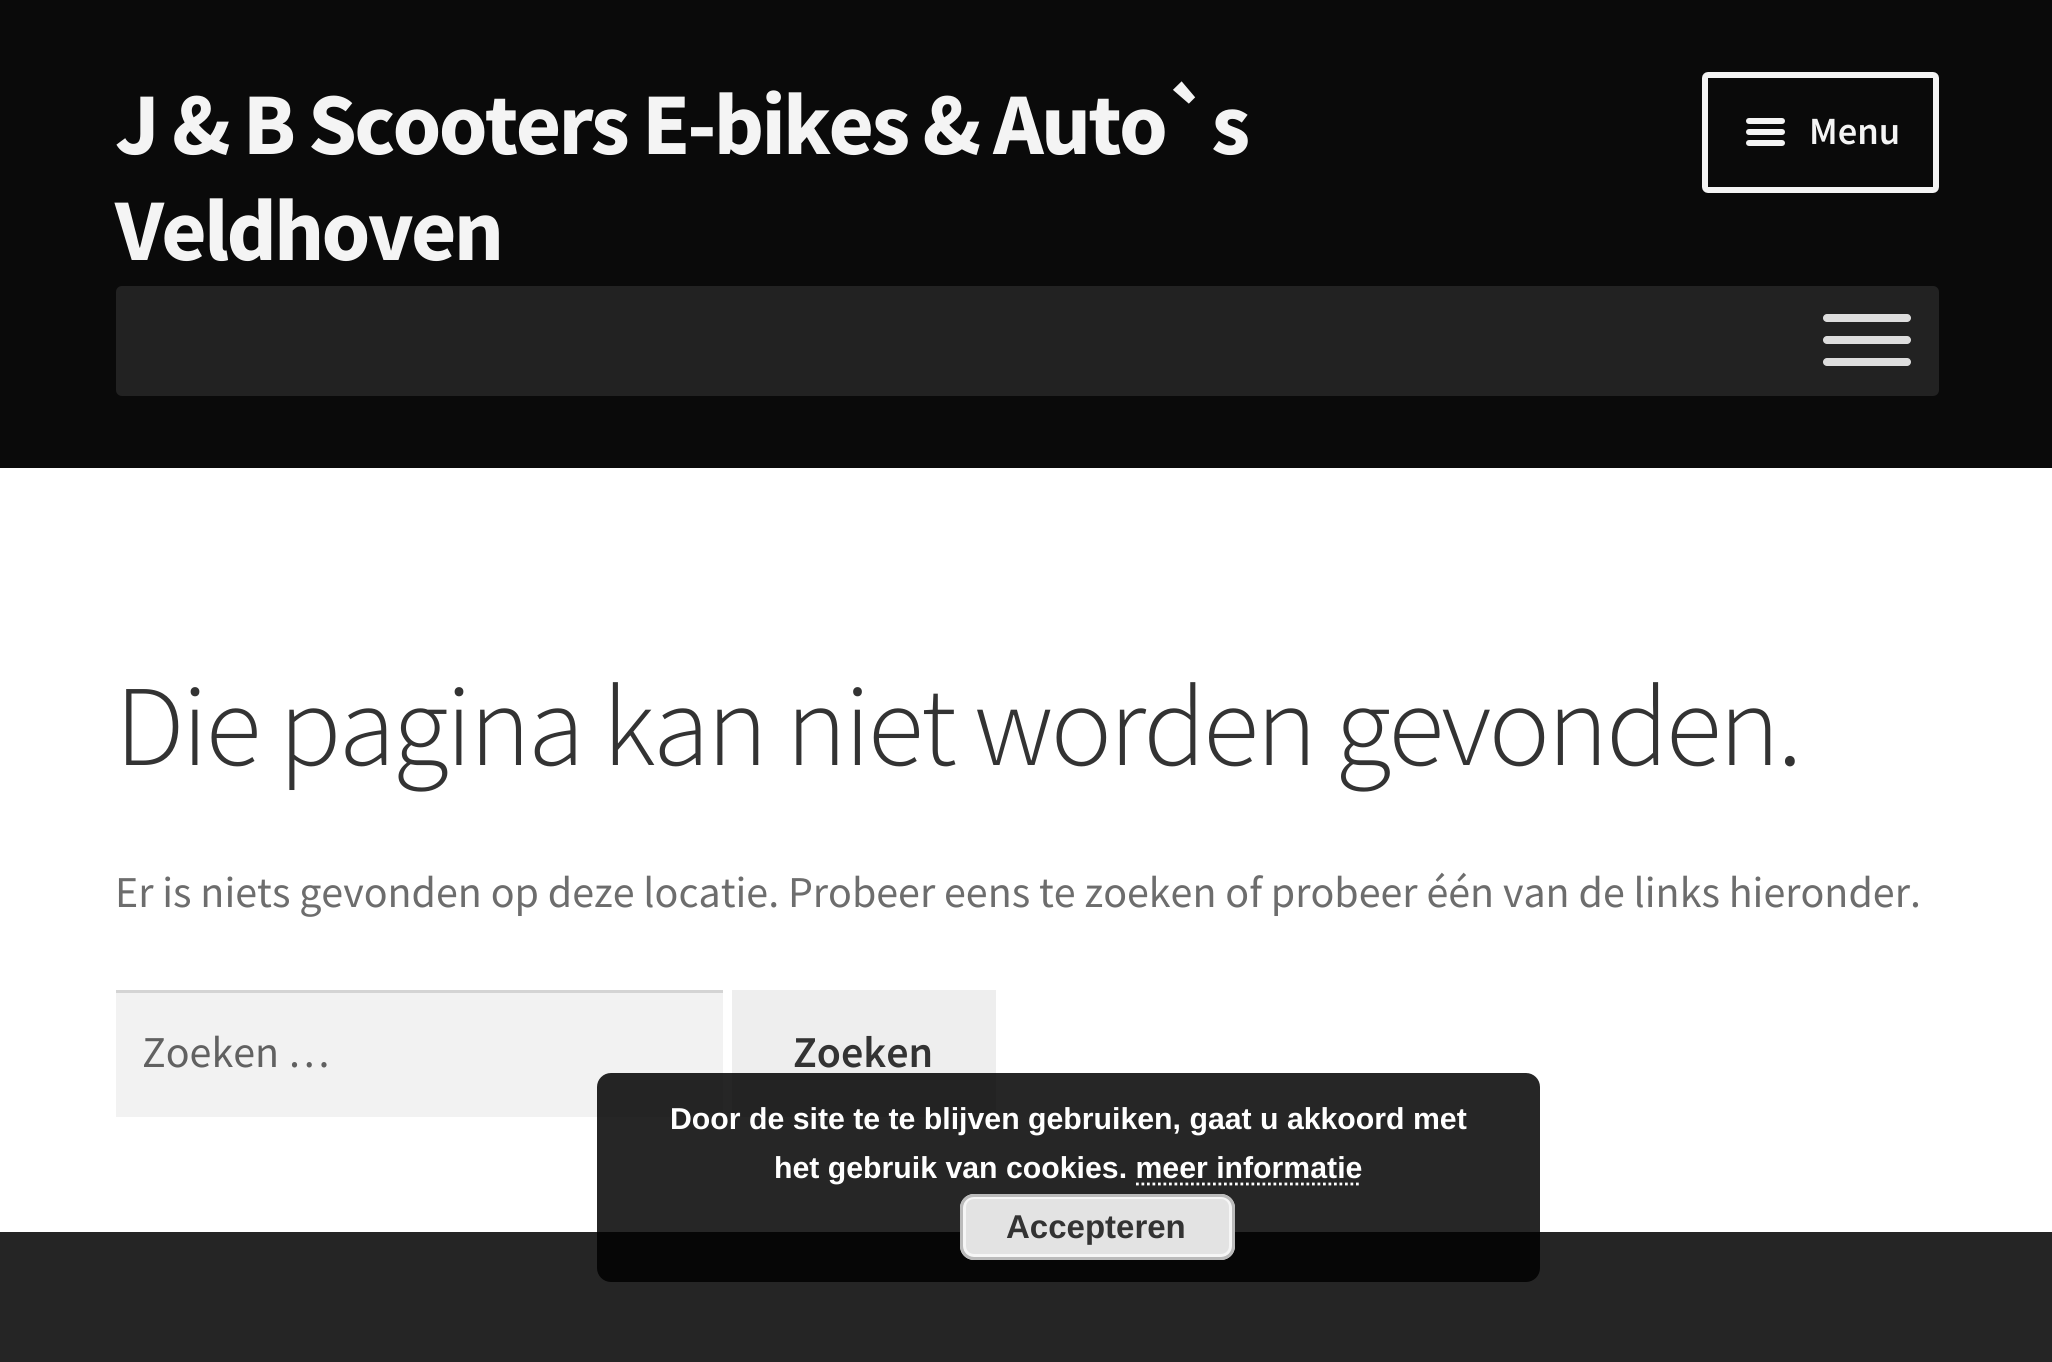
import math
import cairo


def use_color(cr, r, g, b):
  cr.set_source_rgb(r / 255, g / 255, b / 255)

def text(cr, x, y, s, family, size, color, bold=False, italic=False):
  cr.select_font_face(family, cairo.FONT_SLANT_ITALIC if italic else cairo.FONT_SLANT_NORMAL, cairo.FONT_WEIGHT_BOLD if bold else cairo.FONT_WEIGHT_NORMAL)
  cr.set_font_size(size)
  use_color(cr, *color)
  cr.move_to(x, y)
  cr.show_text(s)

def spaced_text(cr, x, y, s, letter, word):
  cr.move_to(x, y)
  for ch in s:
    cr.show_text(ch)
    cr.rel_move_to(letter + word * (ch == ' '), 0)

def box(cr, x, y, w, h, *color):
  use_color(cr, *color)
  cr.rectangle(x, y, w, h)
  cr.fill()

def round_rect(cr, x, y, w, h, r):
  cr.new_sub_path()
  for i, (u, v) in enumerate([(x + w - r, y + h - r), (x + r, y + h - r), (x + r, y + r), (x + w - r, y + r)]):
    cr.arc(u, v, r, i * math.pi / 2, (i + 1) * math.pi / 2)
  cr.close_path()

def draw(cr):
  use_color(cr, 255, 255, 255)
  cr.paint()
  box(cr, 0, 0, 2052, 468, 10, 10, 10)
  round_rect(cr, 1705, 75, 231, 115, 3)
  use_color(cr, 244, 244, 244)
  cr.set_line_width(6)
  cr.stroke()
  round_rect(cr, 1746, 118, 39, 6, 3)
  cr.fill()
  round_rect(cr, 1746, 129, 39, 6, 3)
  cr.fill()
  round_rect(cr, 1746, 140, 39, 6, 3)
  cr.fill()
  use_color(cr, 34, 34, 34)
  round_rect(cr, 116, 286, 1823, 110, 6)
  cr.fill()
  use_color(cr, 221, 221, 221)
  round_rect(cr, 1823, 314, 88, 8, 4)
  cr.fill()
  round_rect(cr, 1823, 336, 88, 8, 4)
  cr.fill()
  round_rect(cr, 1823, 358, 88, 8, 4)
  cr.fill()
  box(cr, 116, 993, 607, 124, 242, 242, 242)
  box(cr, 116, 990, 607, 3, 212, 212, 212)
  box(cr, 732, 990, 264, 127, 238, 238, 238)
  box(cr, 0, 1232, 2052, 130, 37, 37, 37)
  cr.set_source_rgba(0, 0, 0, 0.85)
  round_rect(cr, 597, 1073, 943, 209, 14)
  cr.fill()
  cr.new_path()
  cr.move_to(1136, 1184)
  cr.line_to(1361, 1184)
  use_color(cr, 255, 255, 255)
  cr.set_line_width(2.8)
  cr.set_dash([2.75, 2.75])
  cr.stroke()
  use_color(cr, 227, 227, 227)
  round_rect(cr, 960, 1194, 275, 66, 14)
  cr.fill()
  round_rect(cr, 964.5, 1197.5, 266, 58, 9.5)
  use_color(cr, 246, 246, 246)
  cr.set_line_width(3)
  cr.set_dash([])
  cr.stroke()
  round_rect(cr, 961.5, 1195.5, 272, 63, 12.5)
  use_color(cr, 187, 187, 187)
  cr.stroke()
  cr.select_font_face("Source Sans Pro", cairo.FONT_SLANT_NORMAL, cairo.FONT_WEIGHT_BOLD)
  cr.set_font_size(88)
  use_color(cr, 244, 244, 244)
  spaced_text(cr, 115, 154, "J & B Scooters E-bikes & Auto`s", -2.75, 0)
  spaced_text(cr, 115, 260, "Veldhoven", -2.75, 0)
  text(cr, 1809, 144, "Menu", "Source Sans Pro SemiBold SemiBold", 38.5, (244, 244, 244))
  cr.select_font_face("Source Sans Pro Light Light")
  cr.set_font_size(115.25)
  use_color(cr, 51, 51, 51)
  spaced_text(cr, 115, 765, "Die pagina kan niet worden gevonden.", -2.75, 0)
  text(cr, 115, 907, "Er is niets gevonden op deze locatie. Probeer eens te zoeken of probeer één van de links hieronder.", "Source Sans Pro", 44, (109, 109, 109))
  text(cr, 142, 1067, "Zoeken …", "Source Sans Pro", 44, (97, 97, 97))
  text(cr, 793, 1067, "Zoeken", "Source Sans Pro SemiBold SemiBold", 44, (51, 51, 51))
  text(cr, 670, 1129, "Door de site te te blijven gebruiken, gaat u akkoord met", "Liberation Sans", 30.25, (255, 255, 255), bold=True)
  text(cr, 774, 1178, "het gebruik van cookies. meer informatie", "Liberation Sans", 30.25, (255, 255, 255), bold=True)
  text(cr, 1006, 1238, "Accepteren", "Liberation Sans", 33, (51, 51, 51), bold=True)


surface = cairo.ImageSurface(cairo.FORMAT_RGB24, 2052, 1362)
cr = cairo.Context(surface)
options = cairo.FontOptions()
options.set_hint_metrics(cairo.HINT_METRICS_OFF)
options.set_hint_style(cairo.HINT_STYLE_NONE)
cr.set_font_options(options)
cr.set_miter_limit(4)
draw(cr)
surface.write_to_png("out.png")
